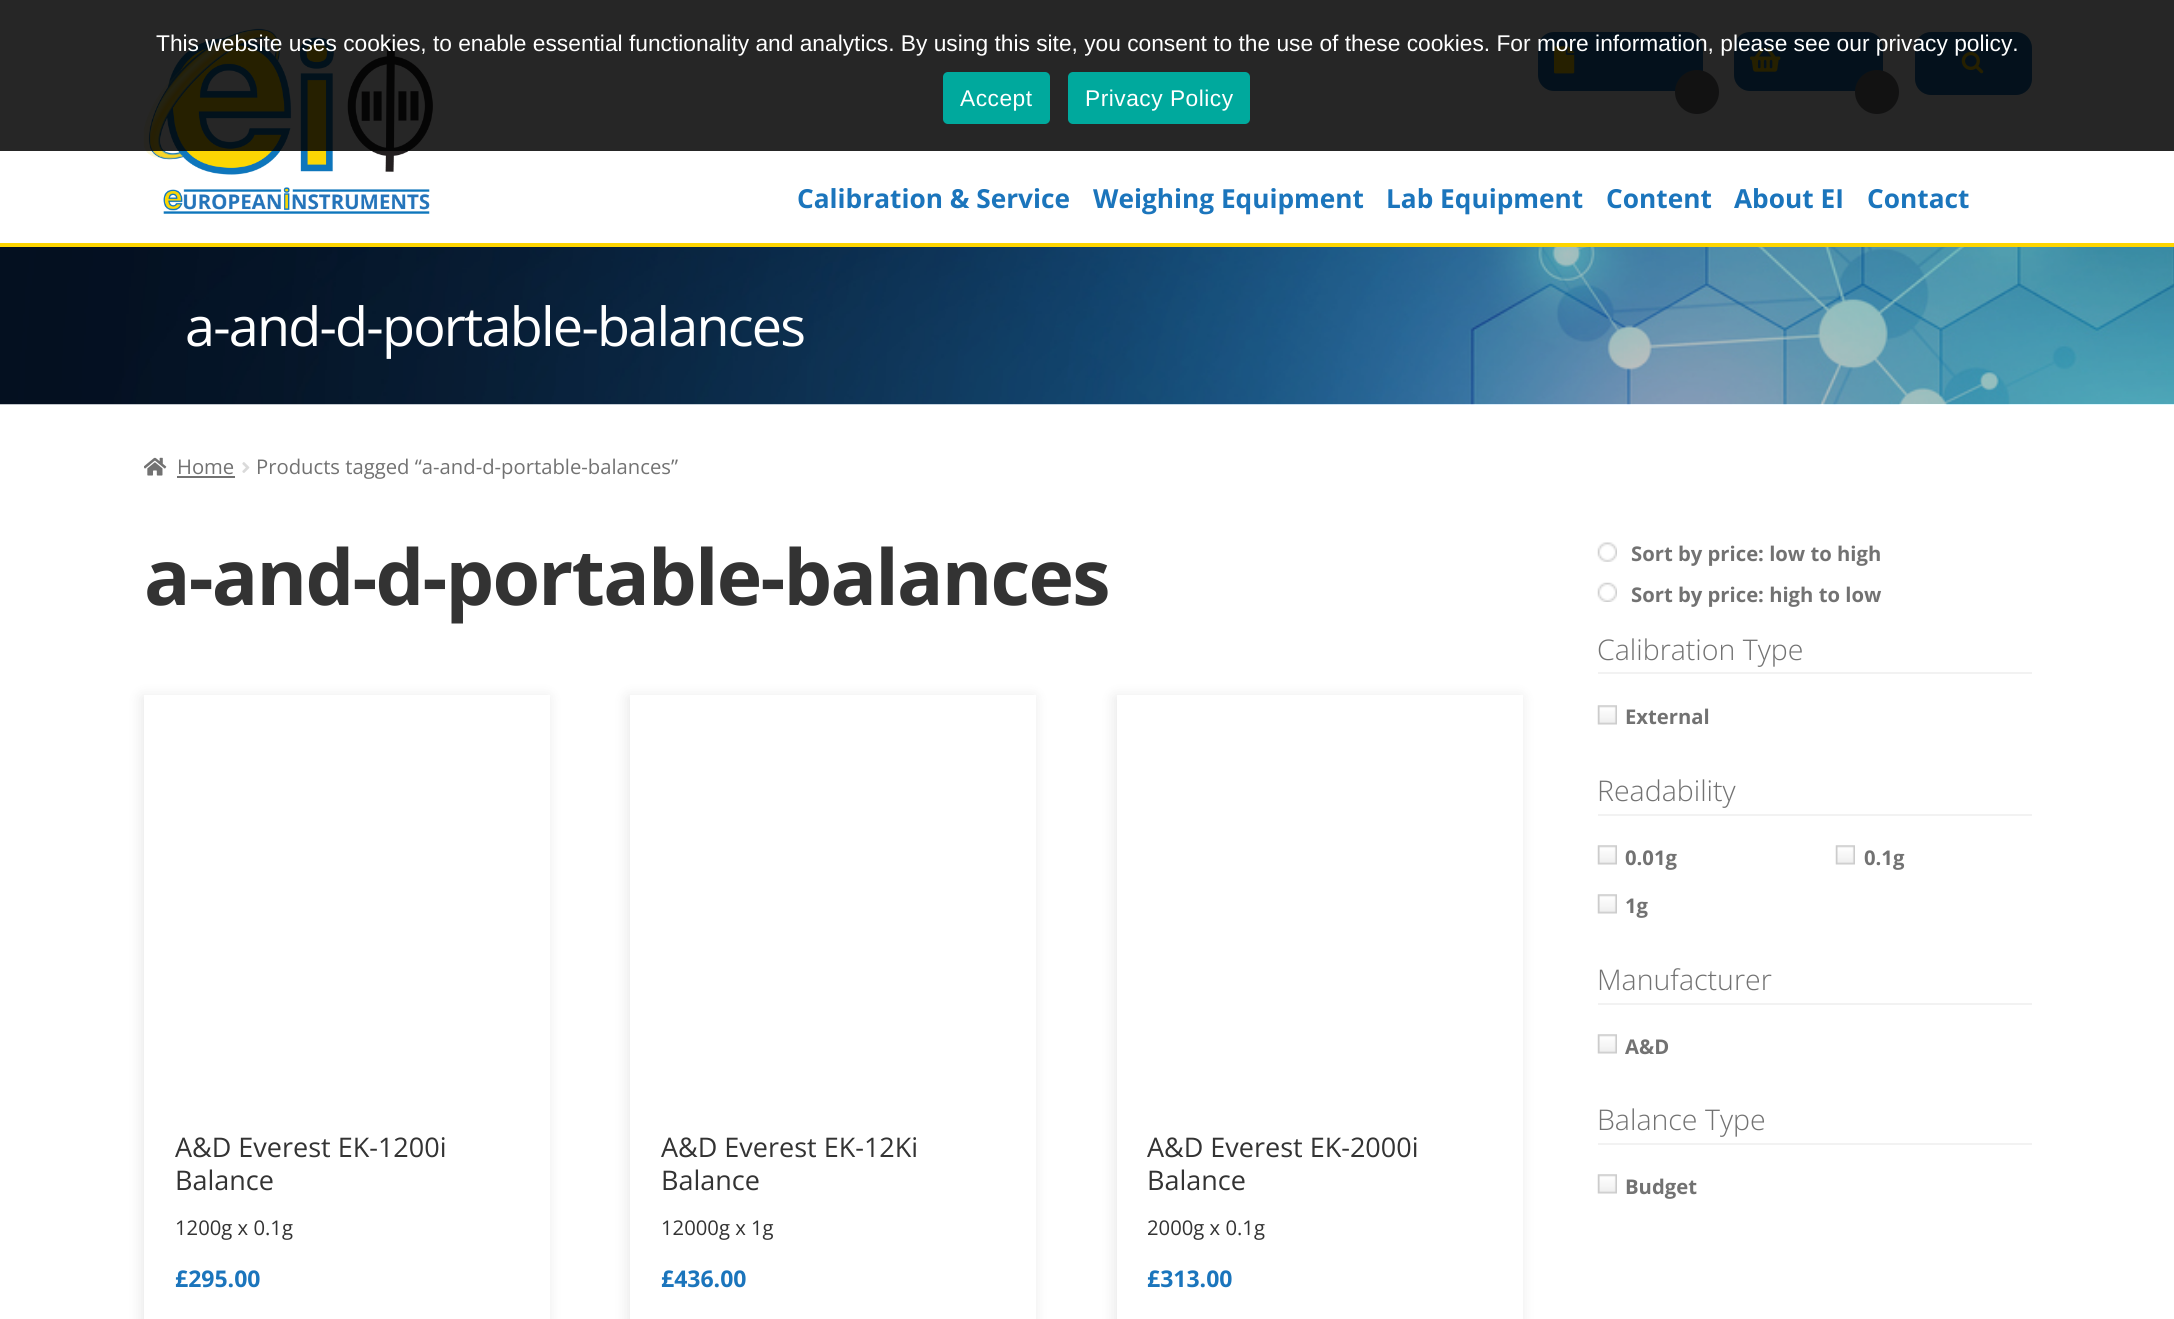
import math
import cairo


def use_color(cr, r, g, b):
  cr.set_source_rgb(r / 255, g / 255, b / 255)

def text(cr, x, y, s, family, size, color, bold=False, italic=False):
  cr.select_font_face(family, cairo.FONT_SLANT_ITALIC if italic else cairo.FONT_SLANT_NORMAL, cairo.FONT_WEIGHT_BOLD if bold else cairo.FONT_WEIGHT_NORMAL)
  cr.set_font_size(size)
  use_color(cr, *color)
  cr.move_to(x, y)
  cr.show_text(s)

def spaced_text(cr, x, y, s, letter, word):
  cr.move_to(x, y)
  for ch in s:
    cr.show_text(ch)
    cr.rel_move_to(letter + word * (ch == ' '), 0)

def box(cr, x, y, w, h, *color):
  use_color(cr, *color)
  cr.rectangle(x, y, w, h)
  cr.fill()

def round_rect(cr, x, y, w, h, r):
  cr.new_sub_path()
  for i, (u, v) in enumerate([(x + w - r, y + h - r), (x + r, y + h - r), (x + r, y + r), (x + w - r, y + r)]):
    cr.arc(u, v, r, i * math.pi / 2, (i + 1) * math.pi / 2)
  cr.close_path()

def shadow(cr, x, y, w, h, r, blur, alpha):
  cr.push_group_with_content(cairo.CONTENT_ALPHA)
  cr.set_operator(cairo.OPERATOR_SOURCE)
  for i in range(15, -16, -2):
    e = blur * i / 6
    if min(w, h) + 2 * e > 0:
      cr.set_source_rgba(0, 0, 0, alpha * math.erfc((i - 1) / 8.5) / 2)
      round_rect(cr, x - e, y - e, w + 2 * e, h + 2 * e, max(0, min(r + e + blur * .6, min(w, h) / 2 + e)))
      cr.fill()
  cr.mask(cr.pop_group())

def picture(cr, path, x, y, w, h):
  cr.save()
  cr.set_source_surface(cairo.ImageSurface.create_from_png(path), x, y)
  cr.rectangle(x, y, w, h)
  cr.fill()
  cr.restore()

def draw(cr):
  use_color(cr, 255, 255, 255)
  cr.paint()
  picture(cr, "img_08.png", 143, 28, 290, 186)
  use_color(cr, 27, 117, 188)
  round_rect(cr, 1538, 32, 165, 59, 16)
  cr.fill()
  picture(cr, "img_09.png", 1554, 46, 21, 28)
  use_color(cr, 119, 120, 123)
  cr.arc(1697, 92, 22, 0, 2 * math.pi)
  cr.fill()
  use_color(cr, 27, 117, 188)
  round_rect(cr, 1734, 32, 149, 59, 16)
  cr.fill()
  picture(cr, "img_10.png", 1750, 48, 31, 24)
  use_color(cr, 119, 120, 123)
  cr.arc(1877, 92, 22, 0, 2 * math.pi)
  cr.fill()
  use_color(cr, 27, 117, 188)
  round_rect(cr, 1916, 33, 115, 61, 15)
  cr.fill_preserve()
  cr.stroke()
  picture(cr, "img_11.png", 1961, 51, 23, 23)
  cr.set_source_rgba(0, 0, 0, 0.85)
  cr.rectangle(0, 0, 2174, 151)
  cr.fill()
  use_color(cr, 0, 169, 157)
  round_rect(cr, 943, 72, 107, 52, 5)
  cr.fill()
  round_rect(cr, 1068, 72, 182, 52, 5)
  cr.fill()
  picture(cr, "img_01.png", 0, 247, 2174, 158)
  picture(cr, "img_02.png", 144, 457, 23, 19)
  box(cr, 177, 476, 58, 2, 114, 114, 114)
  picture(cr, "img_03.png", 242, 462, 8, 11)
  cr.save()
  cr.set_fill_rule(cairo.FILL_RULE_EVEN_ODD)
  cr.new_path()
  cr.move_to(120, 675)
  cr.line_to(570, 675)
  cr.line_to(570, 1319)
  cr.line_to(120, 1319)
  cr.close_path()
  cr.move_to(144, 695)
  cr.line_to(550, 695)
  cr.line_to(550, 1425)
  cr.line_to(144, 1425)
  cr.close_path()
  cr.clip()
  use_color(cr, 0, 0, 0)
  shadow(cr, 142, 697, 406, 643, 0, 7, 0.1)
  cr.restore()
  cr.save()
  cr.set_fill_rule(cairo.FILL_RULE_EVEN_ODD)
  cr.new_path()
  cr.move_to(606, 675)
  cr.line_to(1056, 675)
  cr.line_to(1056, 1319)
  cr.line_to(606, 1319)
  cr.close_path()
  cr.move_to(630, 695)
  cr.line_to(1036, 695)
  cr.line_to(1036, 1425)
  cr.line_to(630, 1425)
  cr.close_path()
  cr.clip()
  use_color(cr, 0, 0, 0)
  shadow(cr, 628, 697, 406, 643, 0, 7, 0.1)
  cr.restore()
  cr.save()
  cr.set_fill_rule(cairo.FILL_RULE_EVEN_ODD)
  cr.new_path()
  cr.move_to(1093, 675)
  cr.line_to(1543, 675)
  cr.line_to(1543, 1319)
  cr.line_to(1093, 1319)
  cr.close_path()
  cr.move_to(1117, 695)
  cr.line_to(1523, 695)
  cr.line_to(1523, 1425)
  cr.line_to(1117, 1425)
  cr.close_path()
  cr.clip()
  use_color(cr, 0, 0, 0)
  shadow(cr, 1115, 697, 406, 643, 0, 7, 0.1)
  cr.restore()
  picture(cr, "img_04.png", 1597, 542, 20, 20)
  picture(cr, "img_05.png", 1597, 582, 20, 20)
  box(cr, 1598, 672, 434, 2, 242, 242, 242)
  picture(cr, "img_06.png", 1597, 705, 20, 20)
  box(cr, 1598, 814, 434, 2, 242, 242, 242)
  picture(cr, "img_06.png", 1597, 845, 20, 20)
  picture(cr, "img_07.png", 1835, 845, 20, 20)
  picture(cr, "img_06.png", 1597, 894, 20, 20)
  box(cr, 1598, 1003, 434, 2, 242, 242, 242)
  picture(cr, "img_06.png", 1597, 1034, 20, 20)
  box(cr, 1598, 1143, 434, 2, 242, 242, 242)
  picture(cr, "img_06.png", 1597, 1174, 20, 20)
  box(cr, 0, 243, 2174, 4, 254, 213, 0)
  text(cr, 156, 51, "This website uses cookies, to enable essential functionality and analytics. By using this site, you consent to the use of these cookies. For more information, please see our privacy policy.", "Liberation Sans", 22.75, (255, 255, 255))
  spaced_text(cr, 960, 106, "Accept", 0.5, 0)
  spaced_text(cr, 1085, 106, "Privacy Policy", 0.5, 0)
  cr.select_font_face("Open Sans")
  cr.set_font_size(53.9)
  spaced_text(cr, 185, 346, "a-and-d-portable-balances", -1.75, 0)
  text(cr, 177, 474, "Home", "Open Sans", 20.25, (114, 114, 114))
  text(cr, 256, 474, "Products tagged “a-and-d-portable-balances”", "Open Sans", 20.25, (114, 114, 114))
  cr.select_font_face("Open Sans", cairo.FONT_SLANT_NORMAL, cairo.FONT_WEIGHT_BOLD)
  cr.set_font_size(77)
  use_color(cr, 51, 51, 51)
  spaced_text(cr, 144, 605, "a-and-d-portable-balances", -1.75, 0)
  text(cr, 175, 1157, "A&D Everest EK-1200i", "Open Sans", 27, (51, 51, 51))
  text(cr, 175, 1190, "Balance", "Open Sans", 27, (51, 51, 51))
  text(cr, 175, 1235, "1200g x 0.1g", "Open Sans", 20.25, (51, 51, 51))
  text(cr, 175, 1287, "£295.00", "Open Sans", 23, (27, 117, 188), bold=True)
  text(cr, 661, 1157, "A&D Everest EK-12Ki", "Open Sans", 27, (51, 51, 51))
  text(cr, 661, 1190, "Balance", "Open Sans", 27, (51, 51, 51))
  text(cr, 661, 1235, "12000g x 1g", "Open Sans", 20.25, (51, 51, 51))
  text(cr, 661, 1287, "£436.00", "Open Sans", 23, (27, 117, 188), bold=True)
  text(cr, 1147, 1157, "A&D Everest EK-2000i", "Open Sans", 27, (51, 51, 51))
  text(cr, 1147, 1190, "Balance", "Open Sans", 27, (51, 51, 51))
  text(cr, 1147, 1235, "2000g x 0.1g", "Open Sans", 20.25, (51, 51, 51))
  text(cr, 1147, 1287, "£313.00", "Open Sans", 23, (27, 117, 188), bold=True)
  text(cr, 1631, 561, "Sort by price: low to high", "Open Sans", 20.25, (114, 114, 114), bold=True)
  text(cr, 1631, 602, "Sort by price: high to low", "Open Sans", 20.25, (114, 114, 114), bold=True)
  text(cr, 1597, 660, "Calibration Type", "Open Sans Light", 28.5, (114, 114, 114))
  text(cr, 1625, 724, "External", "Open Sans", 20.25, (114, 114, 114), bold=True)
  text(cr, 1597, 801, "Readability", "Open Sans Light", 28.5, (114, 114, 114))
  text(cr, 1625, 865, "0.01g", "Open Sans", 20.25, (114, 114, 114), bold=True)
  text(cr, 1864, 865, "0.1g", "Open Sans", 20.25, (114, 114, 114), bold=True)
  text(cr, 1625, 913, "1g", "Open Sans", 20.25, (114, 114, 114), bold=True)
  text(cr, 1597, 990, "Manufacturer", "Open Sans Light", 28.5, (114, 114, 114))
  text(cr, 1625, 1054, "A&D", "Open Sans", 20.25, (114, 114, 114), bold=True)
  text(cr, 1597, 1130, "Balance Type", "Open Sans Light", 28.5, (114, 114, 114))
  text(cr, 1625, 1194, "Budget", "Open Sans", 20.25, (114, 114, 114), bold=True)
  text(cr, 797, 208, "Calibration & Service", "Open Sans", 26.25, (27, 117, 188), bold=True)
  text(cr, 1093, 208, "Weighing Equipment", "Open Sans", 26.25, (27, 117, 188), bold=True)
  text(cr, 1386, 208, "Lab Equipment", "Open Sans", 26.25, (27, 117, 188), bold=True)
  text(cr, 1606, 208, "Content", "Open Sans", 26.25, (27, 117, 188), bold=True)
  text(cr, 1734, 208, "About EI", "Open Sans", 26.25, (27, 117, 188), bold=True)
  text(cr, 1867, 208, "Contact", "Open Sans", 26.25, (27, 117, 188), bold=True)


surface = cairo.ImageSurface(cairo.FORMAT_RGB24, 2174, 1319)
cr = cairo.Context(surface)
options = cairo.FontOptions()
options.set_hint_metrics(cairo.HINT_METRICS_OFF)
options.set_hint_style(cairo.HINT_STYLE_NONE)
cr.set_font_options(options)
cr.set_miter_limit(4)
draw(cr)
surface.write_to_png("out.png")
